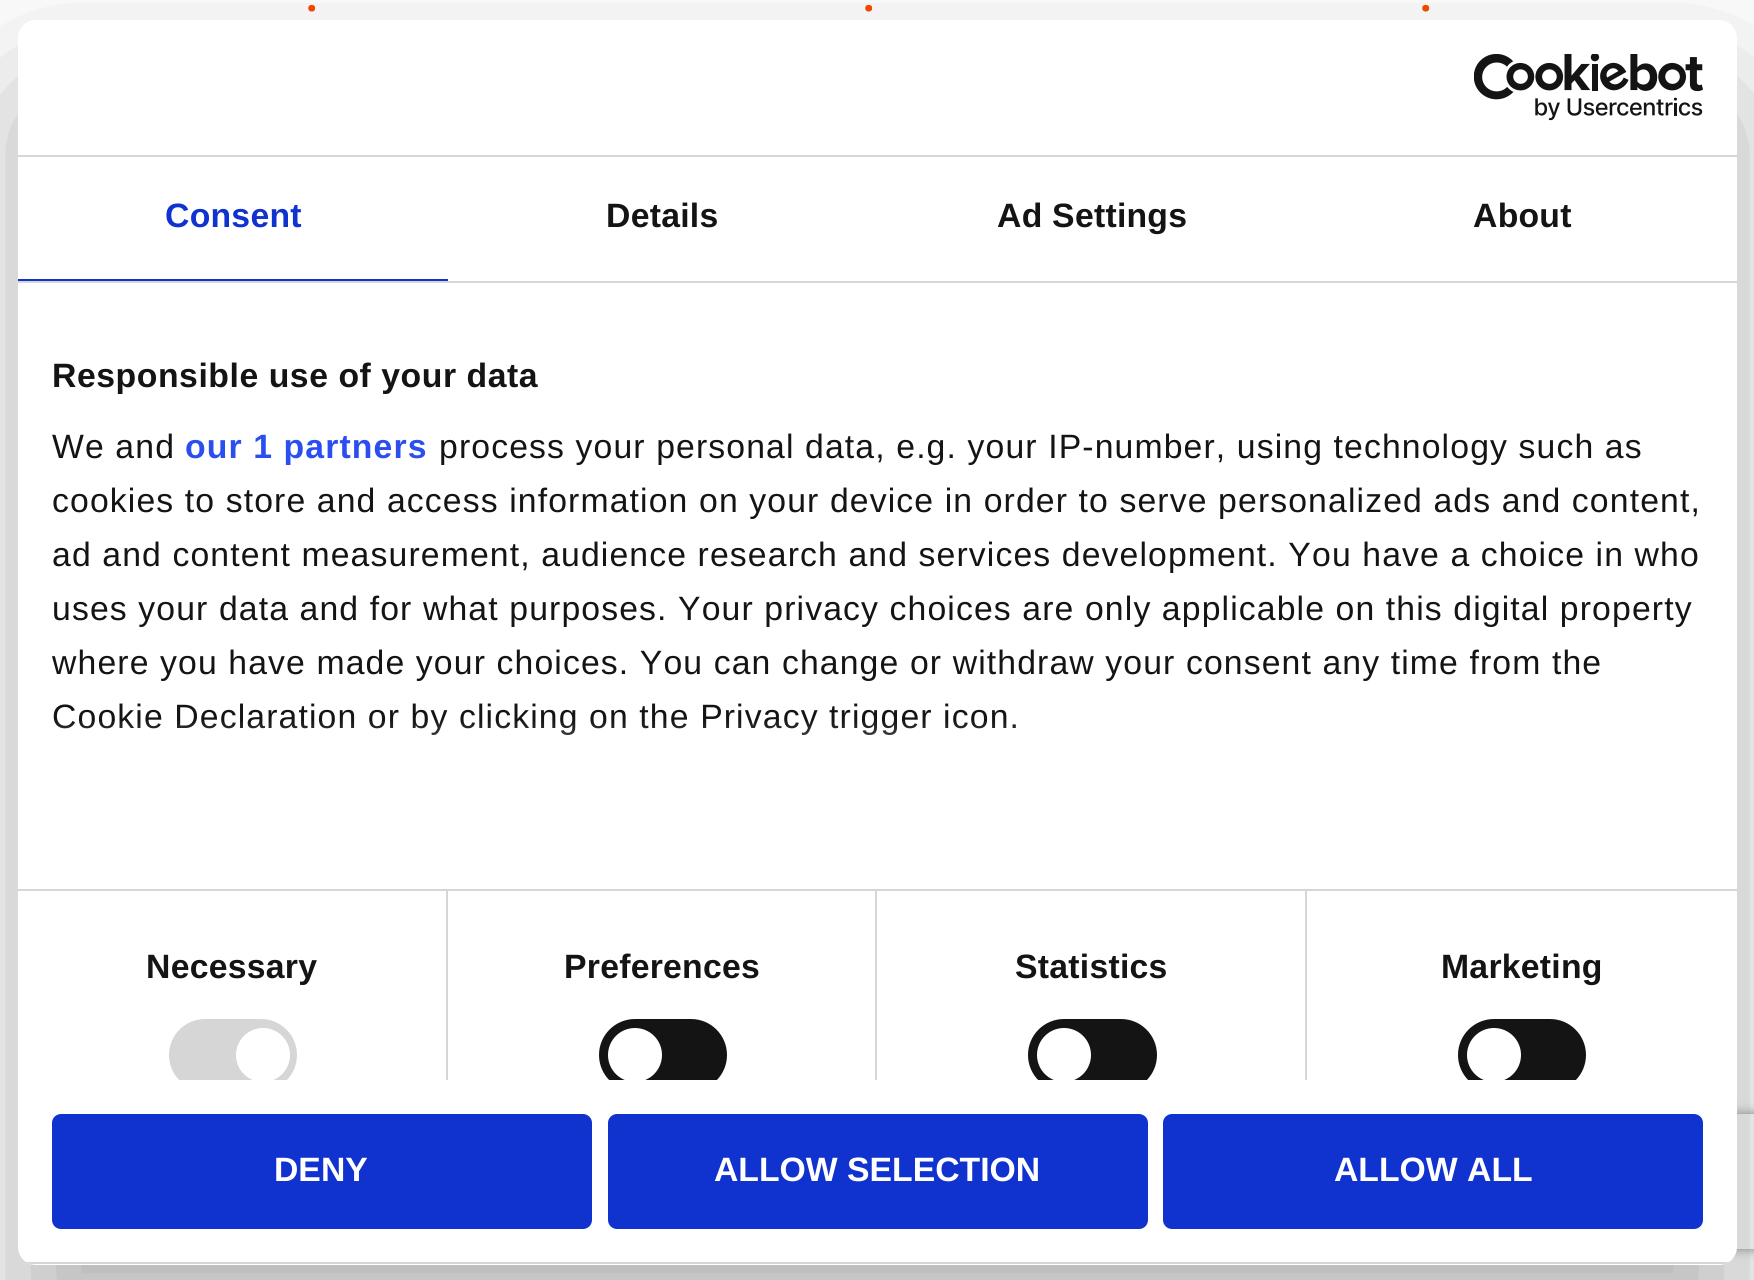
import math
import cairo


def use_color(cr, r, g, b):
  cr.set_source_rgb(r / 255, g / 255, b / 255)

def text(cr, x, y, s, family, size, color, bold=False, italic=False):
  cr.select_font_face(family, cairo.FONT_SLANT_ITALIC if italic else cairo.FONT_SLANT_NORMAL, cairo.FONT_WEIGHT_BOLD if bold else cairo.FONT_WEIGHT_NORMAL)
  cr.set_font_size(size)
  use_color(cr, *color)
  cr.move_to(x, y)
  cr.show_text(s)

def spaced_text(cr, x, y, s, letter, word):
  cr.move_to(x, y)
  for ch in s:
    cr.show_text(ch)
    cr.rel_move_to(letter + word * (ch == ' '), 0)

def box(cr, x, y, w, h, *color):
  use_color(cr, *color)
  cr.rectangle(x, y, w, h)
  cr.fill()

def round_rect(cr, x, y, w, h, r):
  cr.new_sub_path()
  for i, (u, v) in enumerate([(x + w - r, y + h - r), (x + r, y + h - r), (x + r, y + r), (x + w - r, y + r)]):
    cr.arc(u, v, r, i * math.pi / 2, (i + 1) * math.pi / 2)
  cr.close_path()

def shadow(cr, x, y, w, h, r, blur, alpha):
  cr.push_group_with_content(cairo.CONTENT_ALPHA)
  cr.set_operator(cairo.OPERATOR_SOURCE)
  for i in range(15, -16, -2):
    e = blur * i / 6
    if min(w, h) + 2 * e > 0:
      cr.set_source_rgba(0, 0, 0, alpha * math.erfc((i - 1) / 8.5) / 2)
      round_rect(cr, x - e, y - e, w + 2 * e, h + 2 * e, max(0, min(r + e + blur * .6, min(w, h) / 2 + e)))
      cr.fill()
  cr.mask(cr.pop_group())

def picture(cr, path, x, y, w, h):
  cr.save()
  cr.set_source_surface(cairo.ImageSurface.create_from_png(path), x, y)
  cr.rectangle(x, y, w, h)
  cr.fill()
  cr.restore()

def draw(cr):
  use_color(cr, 255, 255, 255)
  cr.paint()
  use_color(cr, 0, 0, 0)
  shadow(cr, 18, 92, 1719, 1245, 18, 76.5, 0.3)
  cr.save()
  cr.set_fill_rule(cairo.FILL_RULE_EVEN_ODD)
  cr.new_path()
  cr.move_to(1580, 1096)
  cr.line_to(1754, 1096)
  cr.line_to(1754, 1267)
  cr.line_to(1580, 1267)
  cr.close_path()
  cr.move_to(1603, 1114)
  cr.line_to(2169, 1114)
  cr.curve_to(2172, 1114, 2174, 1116, 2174, 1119)
  cr.line_to(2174, 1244)
  cr.curve_to(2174, 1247, 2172, 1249, 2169, 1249)
  cr.line_to(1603, 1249)
  cr.curve_to(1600, 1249, 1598, 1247, 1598, 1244)
  cr.line_to(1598, 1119)
  cr.curve_to(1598, 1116, 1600, 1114, 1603, 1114)
  cr.close_path()
  cr.clip()
  use_color(cr, 128, 128, 128)
  shadow(cr, 1598, 1114, 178, 135, 5, 5.5, 1)
  cr.restore()
  use_color(cr, 255, 255, 255)
  round_rect(cr, 18, 20, 1719, 1245, 18)
  cr.fill()
  box(cr, 18, 155, 1719, 2, 214, 214, 214)
  picture(cr, "img_01.png", 1474, 54, 229, 67)
  box(cr, 18, 281, 1719, 2, 214, 214, 214)
  box(cr, 18, 279, 430, 2, 16, 50, 207)
  box(cr, 18, 889, 1719, 2, 214, 214, 214)
  box(cr, 446, 891, 2, 189, 214, 214, 214)
  cr.save()
  cr.rectangle(18, 284, 1719, 796)
  cr.clip()
  round_rect(cr, 169, 1019, 128, 72, 36)
  cr.fill()
  use_color(cr, 255, 255, 255)
  cr.arc(263, 1055, 27, 0, 2 * math.pi)
  cr.fill()
  cr.restore()
  box(cr, 875, 891, 2, 189, 214, 214, 214)
  cr.save()
  cr.rectangle(18, 284, 1719, 796)
  cr.clip()
  use_color(cr, 20, 20, 20)
  round_rect(cr, 599, 1019, 128, 72, 36)
  cr.fill()
  use_color(cr, 255, 255, 255)
  cr.arc(635, 1055, 27, 0, 2 * math.pi)
  cr.fill()
  cr.restore()
  box(cr, 1305, 891, 2, 189, 214, 214, 214)
  cr.save()
  cr.rectangle(18, 284, 1719, 796)
  cr.clip()
  use_color(cr, 20, 20, 20)
  round_rect(cr, 1028, 1019, 129, 72, 36)
  cr.fill()
  use_color(cr, 255, 255, 255)
  cr.arc(1064, 1055, 27, 0, 2 * math.pi)
  cr.fill()
  use_color(cr, 20, 20, 20)
  round_rect(cr, 1458, 1019, 128, 72, 36)
  cr.fill()
  use_color(cr, 255, 255, 255)
  cr.arc(1494, 1055, 27, 0, 2 * math.pi)
  cr.fill()
  cr.restore()
  cr.save()
  round_rect(cr, 18, 20, 1719, 1245, 18)
  cr.clip()
  box(cr, 18, 1262, 1719, 2, 214, 214, 214)
  cr.restore()
  use_color(cr, 16, 50, 207)
  round_rect(cr, 54.5, 1116.5, 535, 110, 6.5)
  cr.fill_preserve()
  cr.set_line_width(5)
  cr.stroke()
  round_rect(cr, 610.5, 1116.5, 535, 110, 6.5)
  cr.fill_preserve()
  cr.stroke()
  round_rect(cr, 1165.5, 1116.5, 535, 110, 6.5)
  cr.fill_preserve()
  cr.stroke()
  text(cr, 306, 11, ".", "Open Sans", 40, (242, 71, 0), bold=True)
  text(cr, 863, 11, ".", "Open Sans", 40, (242, 71, 0), bold=True)
  text(cr, 1420, 11, ".", "Open Sans", 40, (242, 71, 0), bold=True)
  cr.select_font_face("Liberation Sans", cairo.FONT_SLANT_NORMAL, cairo.FONT_WEIGHT_BOLD)
  cr.set_font_size(33.75)
  use_color(cr, 16, 50, 207)
  spaced_text(cr, 165, 227, "Consent", 0.25, 0)
  use_color(cr, 20, 20, 20)
  spaced_text(cr, 606, 227, "Details", 0.25, 0)
  spaced_text(cr, 997, 227, "Ad Settings", 0.25, 0)
  spaced_text(cr, 1473, 227, "About", 0.25, 0)
  spaced_text(cr, 52, 387, "Responsible use of your data", 0.55, 0)
  cr.select_font_face("Liberation Sans")
  spaced_text(cr, 52, 458, "We and", 1.12, 0)
  cr.select_font_face("Liberation Sans", cairo.FONT_SLANT_NORMAL, cairo.FONT_WEIGHT_BOLD)
  use_color(cr, 42, 78, 239)
  spaced_text(cr, 185, 458, "our 1 partners", 1.12, 0)
  cr.select_font_face("Liberation Sans")
  use_color(cr, 20, 20, 20)
  spaced_text(cr, 439, 458, "process your personal data, e.g. your IP-number, using technology such as", 1.12, 0)
  spaced_text(cr, 52, 512, "cookies to store and access information on your device in order to serve personalized ads and content,", 1.12, 0)
  spaced_text(cr, 52, 566, "ad and content measurement, audience research and services development. You have a choice in who", 1.12, 0)
  spaced_text(cr, 52, 620, "uses your data and for what purposes. Your privacy choices are only applicable on this digital property", 1.12, 0)
  spaced_text(cr, 52, 674, "where you have made your choices. You can change or withdraw your consent any time from the", 1.12, 0)
  spaced_text(cr, 52, 728, "Cookie Declaration or by clicking on the Privacy trigger icon.", 1.12, 0)
  gradient = cairo.LinearGradient(863, 888, 863, 719)
  gradient.add_color_stop_rgba(0, 1, 1, 1, 1)
  gradient.add_color_stop_rgba(0.5, 1, 1, 1, 0.8)
  gradient.add_color_stop_rgba(1, 1, 1, 1, 0)
  cr.set_source(gradient)
  cr.rectangle(54, 721, 962, 14)
  cr.fill()
  cr.select_font_face("Liberation Sans", cairo.FONT_SLANT_NORMAL, cairo.FONT_WEIGHT_BOLD)
  use_color(cr, 20, 20, 20)
  spaced_text(cr, 146, 978, "Necessary", 0.25, 0)
  spaced_text(cr, 564, 978, "Preferences", 0.25, 0)
  spaced_text(cr, 1015, 978, "Statistics", 0.25, 0)
  spaced_text(cr, 1441, 978, "Marketing", 0.25, 0)
  text(cr, 274, 1181, "DENY", "Liberation Sans", 33.75, (255, 255, 255), bold=True)
  text(cr, 714, 1181, "ALLOW SELECTION", "Liberation Sans", 33.75, (255, 255, 255), bold=True)
  text(cr, 1334, 1181, "ALLOW ALL", "Liberation Sans", 33.75, (255, 255, 255), bold=True)


surface = cairo.ImageSurface(cairo.FORMAT_RGB24, 1754, 1280)
cr = cairo.Context(surface)
options = cairo.FontOptions()
options.set_hint_metrics(cairo.HINT_METRICS_OFF)
options.set_hint_style(cairo.HINT_STYLE_NONE)
cr.set_font_options(options)
cr.set_miter_limit(4)
draw(cr)
surface.write_to_png("out.png")
